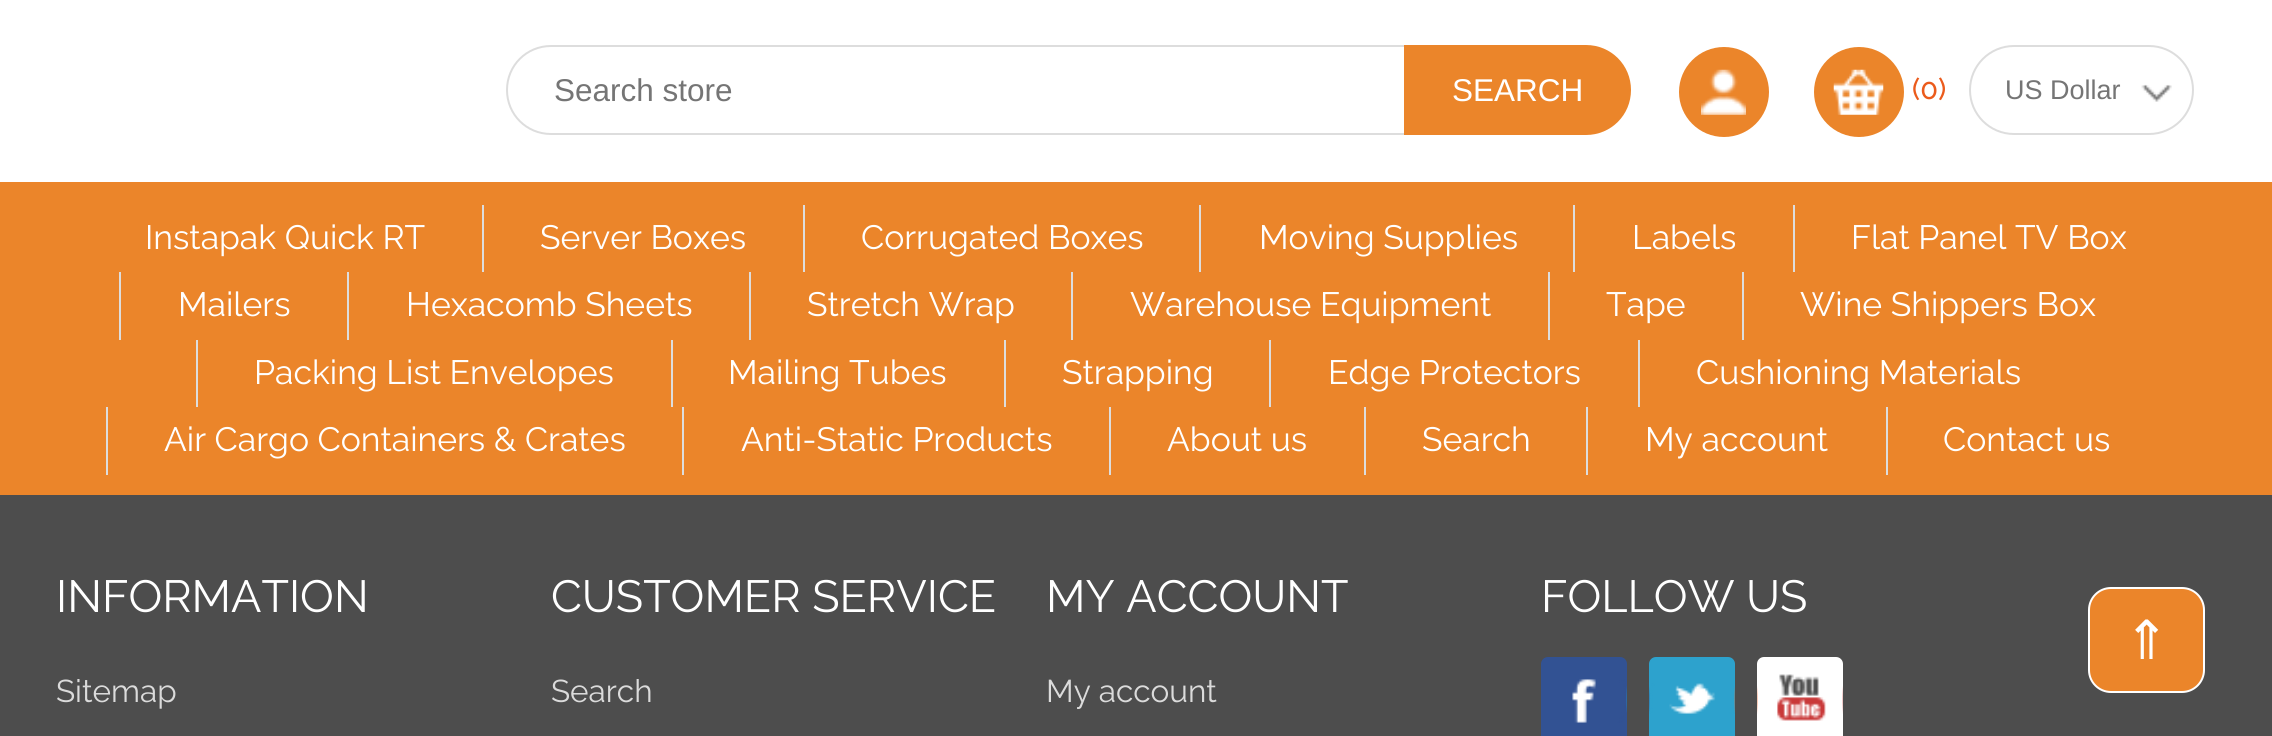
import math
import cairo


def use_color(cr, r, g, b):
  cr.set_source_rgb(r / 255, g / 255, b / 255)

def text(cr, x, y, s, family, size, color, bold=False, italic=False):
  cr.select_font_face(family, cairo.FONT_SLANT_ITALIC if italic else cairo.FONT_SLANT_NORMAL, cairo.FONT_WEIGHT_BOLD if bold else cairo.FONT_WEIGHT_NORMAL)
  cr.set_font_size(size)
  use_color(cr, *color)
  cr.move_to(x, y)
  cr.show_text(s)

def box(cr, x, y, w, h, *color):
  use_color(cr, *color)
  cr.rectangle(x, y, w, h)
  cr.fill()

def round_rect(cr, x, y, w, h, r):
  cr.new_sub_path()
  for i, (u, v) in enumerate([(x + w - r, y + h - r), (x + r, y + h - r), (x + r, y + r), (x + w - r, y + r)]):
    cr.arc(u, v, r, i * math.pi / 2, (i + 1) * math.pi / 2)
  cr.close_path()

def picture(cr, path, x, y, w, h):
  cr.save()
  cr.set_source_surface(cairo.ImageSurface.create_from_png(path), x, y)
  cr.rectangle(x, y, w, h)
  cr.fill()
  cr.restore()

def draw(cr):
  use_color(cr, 77, 77, 77)
  cr.paint()
  box(cr, 0, 182, 2272, 313, 235, 133, 42)
  box(cr, 0, 0, 2272, 182, 255, 255, 255)
  cr.new_path()
  cr.move_to(551, 46)
  cr.line_to(1405, 46)
  cr.line_to(1405, 134)
  cr.line_to(551, 134)
  cr.curve_to(526.5, 134, 507, 114.5, 507, 90)
  cr.curve_to(507, 65.5, 526.5, 46, 551, 46)
  cr.close_path()
  use_color(cr, 221, 221, 221)
  cr.stroke()
  use_color(cr, 235, 133, 42)
  cr.new_path()
  cr.move_to(1404, 45)
  cr.line_to(1586, 45)
  cr.curve_to(1611, 45, 1631, 65, 1631, 90)
  cr.curve_to(1631, 115, 1611, 135, 1586, 135)
  cr.line_to(1404, 135)
  cr.close_path()
  cr.fill()
  cr.arc(1724, 92, 45, 0, 2 * math.pi)
  cr.fill()
  picture(cr, "img_01.png", 1701, 69, 45, 46)
  cr.arc(1859, 92, 45, 0, 2 * math.pi)
  cr.fill()
  picture(cr, "img_02.png", 1833, 69, 51, 46)
  picture(cr, "img_03.png", 2141, 84, 31, 18)
  round_rect(cr, 1970, 46, 223, 88, 44)
  use_color(cr, 221, 221, 221)
  cr.stroke()
  box(cr, 482, 205, 2, 67, 221, 221, 221)
  box(cr, 803, 205, 2, 67, 221, 221, 221)
  box(cr, 1199, 205, 2, 67, 221, 221, 221)
  box(cr, 1573, 205, 2, 67, 221, 221, 221)
  box(cr, 1793, 205, 2, 67, 221, 221, 221)
  box(cr, 119, 272, 2, 68, 221, 221, 221)
  box(cr, 347, 272, 2, 68, 221, 221, 221)
  box(cr, 749, 272, 2, 68, 221, 221, 221)
  box(cr, 1071, 272, 2, 68, 221, 221, 221)
  box(cr, 1548, 272, 2, 68, 221, 221, 221)
  box(cr, 1742, 272, 2, 68, 221, 221, 221)
  box(cr, 196, 340, 2, 67, 221, 221, 221)
  box(cr, 671, 340, 2, 67, 221, 221, 221)
  box(cr, 1004, 340, 2, 67, 221, 221, 221)
  box(cr, 1269, 340, 2, 67, 221, 221, 221)
  box(cr, 1638, 340, 2, 67, 221, 221, 221)
  box(cr, 106, 407, 2, 68, 221, 221, 221)
  box(cr, 682, 407, 2, 68, 221, 221, 221)
  box(cr, 1109, 407, 2, 68, 221, 221, 221)
  box(cr, 1364, 407, 2, 68, 221, 221, 221)
  box(cr, 1586, 407, 2, 68, 221, 221, 221)
  box(cr, 1886, 407, 2, 68, 221, 221, 221)
  use_color(cr, 50, 82, 147)
  round_rect(cr, 1541, 657, 86, 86, 7)
  cr.fill()
  picture(cr, "img_04.png", 1572, 679, 55, 44)
  use_color(cr, 45, 162, 205)
  round_rect(cr, 1649, 657, 86, 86, 7)
  cr.fill()
  picture(cr, "img_05.png", 1649, 683, 86, 31)
  use_color(cr, 255, 255, 255)
  round_rect(cr, 1757, 657, 86, 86, 7)
  cr.fill()
  picture(cr, "img_06.png", 1757, 674, 86, 47)
  use_color(cr, 235, 133, 42)
  round_rect(cr, 2089, 588, 115, 104, 22)
  cr.fill_preserve()
  use_color(cr, 255, 255, 255)
  cr.stroke()
  text(cr, 554, 101, "Search store", "Liberation Sans", 31.5, (117, 117, 117))
  text(cr, 1452, 101, "SEARCH", "Liberation Sans", 31.5, (255, 255, 255))
  text(cr, 1912, 99, "(0)", "Raleway Medium", 29, (235, 91, 28))
  text(cr, 2005, 99, "US Dollar", "Liberation Sans", 27, (117, 117, 117))
  text(cr, 145, 249, "Instapak Quick RT", "Raleway", 33.75, (255, 255, 255))
  text(cr, 540, 249, "Server Boxes", "Raleway", 33.75, (255, 255, 255))
  text(cr, 861, 249, "Corrugated Boxes", "Raleway", 33.75, (255, 255, 255))
  text(cr, 1259, 249, "Moving Supplies", "Raleway", 33.75, (255, 255, 255))
  text(cr, 1632, 249, "Labels", "Raleway", 33.75, (255, 255, 255))
  text(cr, 1851, 249, "Flat Panel TV Box", "Raleway", 33.75, (255, 255, 255))
  text(cr, 178, 316, "Mailers", "Raleway", 33.75, (255, 255, 255))
  text(cr, 406, 316, "Hexacomb Sheets", "Raleway", 33.75, (255, 255, 255))
  text(cr, 807, 316, "Stretch Wrap", "Raleway", 33.75, (255, 255, 255))
  text(cr, 1130, 316, "Warehouse Equipment", "Raleway", 33.75, (255, 255, 255))
  text(cr, 1606, 316, "Tape", "Raleway", 33.75, (255, 255, 255))
  text(cr, 1800, 316, "Wine Shippers Box", "Raleway", 33.75, (255, 255, 255))
  text(cr, 254, 384, "Packing List Envelopes", "Raleway", 33.75, (255, 255, 255))
  text(cr, 728, 384, "Mailing Tubes", "Raleway", 33.75, (255, 255, 255))
  text(cr, 1062, 384, "Strapping", "Raleway", 33.75, (255, 255, 255))
  text(cr, 1328, 384, "Edge Protectors", "Raleway", 33.75, (255, 255, 255))
  text(cr, 1696, 384, "Cushioning Materials", "Raleway", 33.75, (255, 255, 255))
  text(cr, 164, 451, "Air Cargo Containers & Crates", "Raleway", 33.75, (255, 255, 255))
  text(cr, 741, 451, "Anti-Static Products", "Raleway", 33.75, (255, 255, 255))
  text(cr, 1167, 451, "About us", "Raleway", 33.75, (255, 255, 255))
  text(cr, 1422, 451, "Search", "Raleway", 33.75, (255, 255, 255))
  text(cr, 1645, 451, "My account", "Raleway", 33.75, (255, 255, 255))
  text(cr, 1943, 451, "Contact us", "Raleway", 33.75, (255, 255, 255))
  text(cr, 56, 612, "INFORMATION", "Raleway", 45, (255, 255, 255))
  text(cr, 56, 702, "Sitemap", "Raleway", 31.5, (219, 219, 219))
  text(cr, 551, 612, "CUSTOMER SERVICE", "Raleway", 45, (255, 255, 255))
  text(cr, 551, 702, "Search", "Raleway", 31.5, (219, 219, 219))
  text(cr, 1046, 612, "MY ACCOUNT", "Raleway", 45, (255, 255, 255))
  text(cr, 1046, 702, "My account", "Raleway", 31.5, (219, 219, 219))
  text(cr, 1541, 612, "FOLLOW US", "Raleway", 45, (255, 255, 255))
  text(cr, 2124, 659, "⇑", "DejaVu Sans", 54, (255, 255, 255))


surface = cairo.ImageSurface(cairo.FORMAT_RGB24, 2272, 736)
cr = cairo.Context(surface)
options = cairo.FontOptions()
options.set_hint_metrics(cairo.HINT_METRICS_OFF)
options.set_hint_style(cairo.HINT_STYLE_NONE)
cr.set_font_options(options)
cr.set_miter_limit(4)
draw(cr)
surface.write_to_png("out.png")
